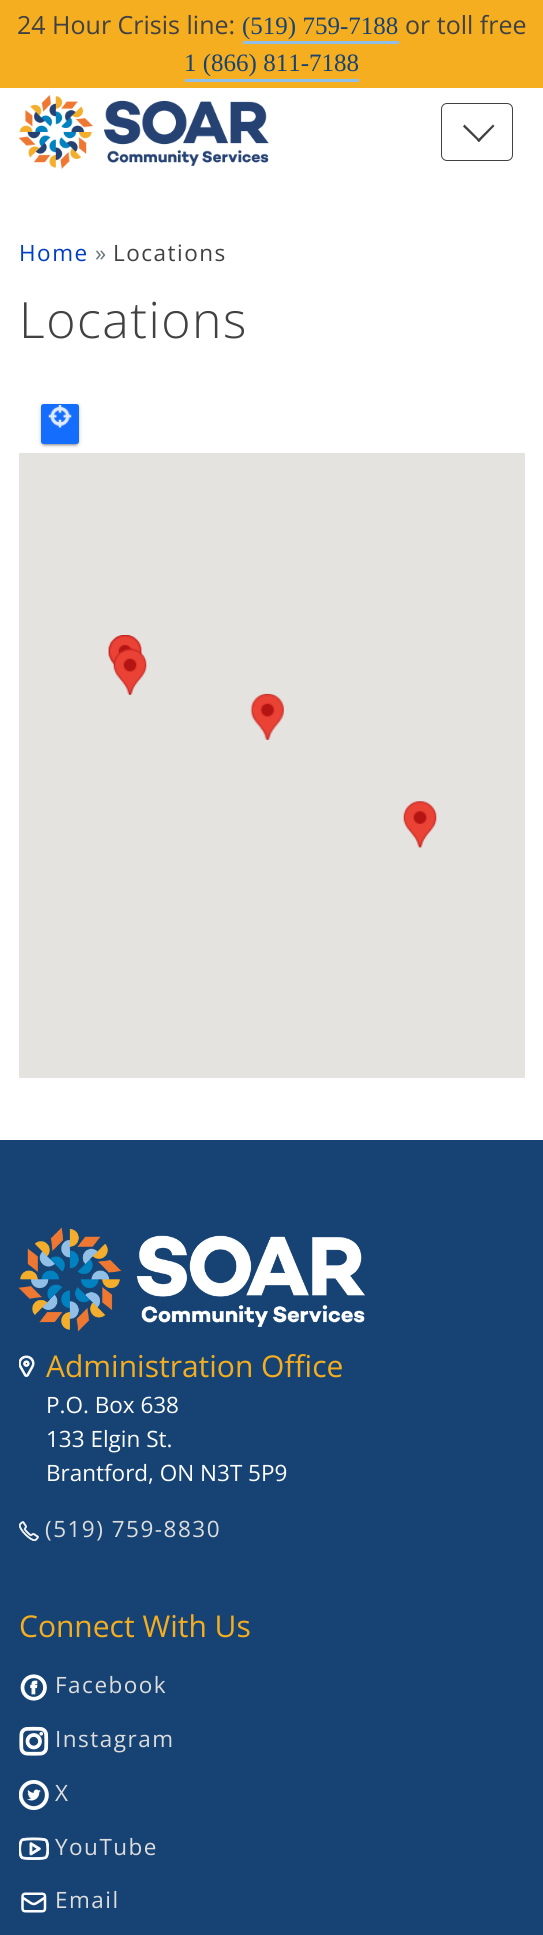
import math
import cairo


def use_color(cr, r, g, b):
  cr.set_source_rgb(r / 255, g / 255, b / 255)

def text(cr, x, y, s, family, size, color, bold=False, italic=False):
  cr.select_font_face(family, cairo.FONT_SLANT_ITALIC if italic else cairo.FONT_SLANT_NORMAL, cairo.FONT_WEIGHT_BOLD if bold else cairo.FONT_WEIGHT_NORMAL)
  cr.set_font_size(size)
  use_color(cr, *color)
  cr.move_to(x, y)
  cr.show_text(s)

def spaced_text(cr, x, y, s, letter, word):
  cr.move_to(x, y)
  for ch in s:
    cr.show_text(ch)
    cr.rel_move_to(letter + word * (ch == ' '), 0)

def box(cr, x, y, w, h, *color):
  use_color(cr, *color)
  cr.rectangle(x, y, w, h)
  cr.fill()

def round_rect(cr, x, y, w, h, r):
  cr.new_sub_path()
  for i, (u, v) in enumerate([(x + w - r, y + h - r), (x + r, y + h - r), (x + r, y + r), (x + w - r, y + r)]):
    cr.arc(u, v, r, i * math.pi / 2, (i + 1) * math.pi / 2)
  cr.close_path()

def shadow(cr, x, y, w, h, r, blur, alpha):
  cr.push_group_with_content(cairo.CONTENT_ALPHA)
  cr.set_operator(cairo.OPERATOR_SOURCE)
  for i in range(15, -16, -2):
    e = blur * i / 6
    if min(w, h) + 2 * e > 0:
      cr.set_source_rgba(0, 0, 0, alpha * math.erfc((i - 1) / 8.5) / 2)
      round_rect(cr, x - e, y - e, w + 2 * e, h + 2 * e, max(0, min(r + e + blur * .6, min(w, h) / 2 + e)))
      cr.fill()
  cr.mask(cr.pop_group())

def picture(cr, path, x, y, w, h):
  cr.save()
  cr.set_source_surface(cairo.ImageSurface.create_from_png(path), x, y)
  cr.rectangle(x, y, w, h)
  cr.fill()
  cr.restore()

def draw(cr):
  use_color(cr, 255, 255, 255)
  cr.paint()
  box(cr, 0, 0, 543, 88, 245, 174, 32)
  box(cr, 243, 41, 156, 3, 145, 191, 231)
  box(cr, 185, 79, 174, 3, 145, 191, 231)
  picture(cr, "img_01.png", 18, 95, 251, 74)
  round_rect(cr, 441.5, 103.5, 71, 57, 5.5)
  use_color(cr, 65, 64, 66)
  cr.set_line_width(1)
  cr.stroke()
  cr.new_path()
  cr.move_to(493, 124.5)
  cr.line_to(494.5, 126)
  cr.line_to(479, 142)
  cr.line_to(477, 140.5)
  cr.close_path()
  cr.fill()
  cr.new_path()
  cr.move_to(464.5, 124.5)
  cr.line_to(480.5, 140.5)
  cr.line_to(479, 142)
  cr.line_to(463, 126.5)
  cr.close_path()
  cr.fill()
  use_color(cr, 0, 0, 0)
  shadow(cr, 44, 410, 32, 35, 0, 0.5, 0.2)
  shadow(cr, 41, 405, 38, 40, 2.5, 3, 0.12)
  shadow(cr, 41, 406, 38, 40, 2.5, 1, 0.14)
  use_color(cr, 21, 109, 254)
  round_rect(cr, 41, 404, 38, 40, 2.5)
  cr.fill()
  picture(cr, "img_02.png", 48, 405, 24, 23)
  box(cr, 19, 453, 506, 625, 229, 227, 223)
  picture(cr, "img_03.png", 108, 635, 34, 45)
  picture(cr, "img_04.png", 108, 635, 34, 47)
  picture(cr, "img_05.png", 113, 648, 34, 47)
  picture(cr, "img_06.png", 250, 693, 34, 47)
  picture(cr, "img_07.png", 403, 801, 34, 47)
  box(cr, 0, 1140, 543, 795, 22, 67, 115)
  picture(cr, "img_08.png", 18, 1227, 347, 105)
  picture(cr, "img_09.png", 19, 1355, 16, 22)
  picture(cr, "img_10.png", 19, 1521, 20, 20)
  picture(cr, "img_11.png", 20, 1674, 27, 27)
  picture(cr, "img_12.png", 19, 1726, 30, 30)
  picture(cr, "img_13.png", 19, 1780, 30, 30)
  picture(cr, "img_14.png", 19, 1837, 30, 23)
  picture(cr, "img_15.png", 21, 1892, 26, 21)
  text(cr, 17, 34, "24 Hour Crisis line:", "Open Sans", 25, (65, 64, 66))
  text(cr, 242, 34, "(519) 759-7188", "Liberation Serif", 25, (22, 67, 115))
  text(cr, 405, 34, "or toll free", "Open Sans", 25, (65, 64, 66))
  text(cr, 184, 71, "1 (866) 811-7188", "Liberation Serif", 25, (22, 67, 115))
  cr.select_font_face("Open Sans")
  cr.set_font_size(22.5)
  use_color(cr, 0, 60, 197)
  spaced_text(cr, 19, 261, "Home", 1.5, 0)
  use_color(cr, 108, 117, 125)
  spaced_text(cr, 95, 261, "»", 1.5, 0)
  use_color(cr, 65, 64, 66)
  spaced_text(cr, 113, 261, "Locations", 1.5, 0)
  cr.select_font_face("Open Sans Light")
  cr.set_font_size(50)
  spaced_text(cr, 19, 338, "Locations", 1.5, 0)
  text(cr, 46, 1377, "Administration Office", "Open Sans", 30, (245, 174, 32))
  text(cr, 46, 1413, "P.O. Box 638", "Open Sans", 22.5, (255, 255, 255))
  text(cr, 46, 1447, "133 Elgin St.", "Open Sans", 22.5, (255, 255, 255))
  text(cr, 46, 1481, "Brantford, ON N3T 5P9", "Open Sans", 22.5, (255, 255, 255))
  use_color(cr, 221, 221, 221)
  spaced_text(cr, 45, 1537, "(519) 759-8830", 1.5, 0)
  text(cr, 19, 1637, "Connect With Us", "Open Sans", 30, (245, 174, 32))
  cr.set_font_size(22.5)
  use_color(cr, 221, 221, 221)
  spaced_text(cr, 55, 1693, "Facebook", 1.5, 0)
  spaced_text(cr, 55, 1747, "Instagram", 1.5, 0)
  spaced_text(cr, 55, 1801, "X", 1.5, 0)
  spaced_text(cr, 55, 1855, "YouTube", 1.5, 0)
  spaced_text(cr, 55, 1908, "Email", 1.5, 0)


surface = cairo.ImageSurface(cairo.FORMAT_RGB24, 543, 1935)
cr = cairo.Context(surface)
options = cairo.FontOptions()
options.set_hint_metrics(cairo.HINT_METRICS_OFF)
options.set_hint_style(cairo.HINT_STYLE_NONE)
cr.set_font_options(options)
cr.set_miter_limit(4)
draw(cr)
surface.write_to_png("out.png")
